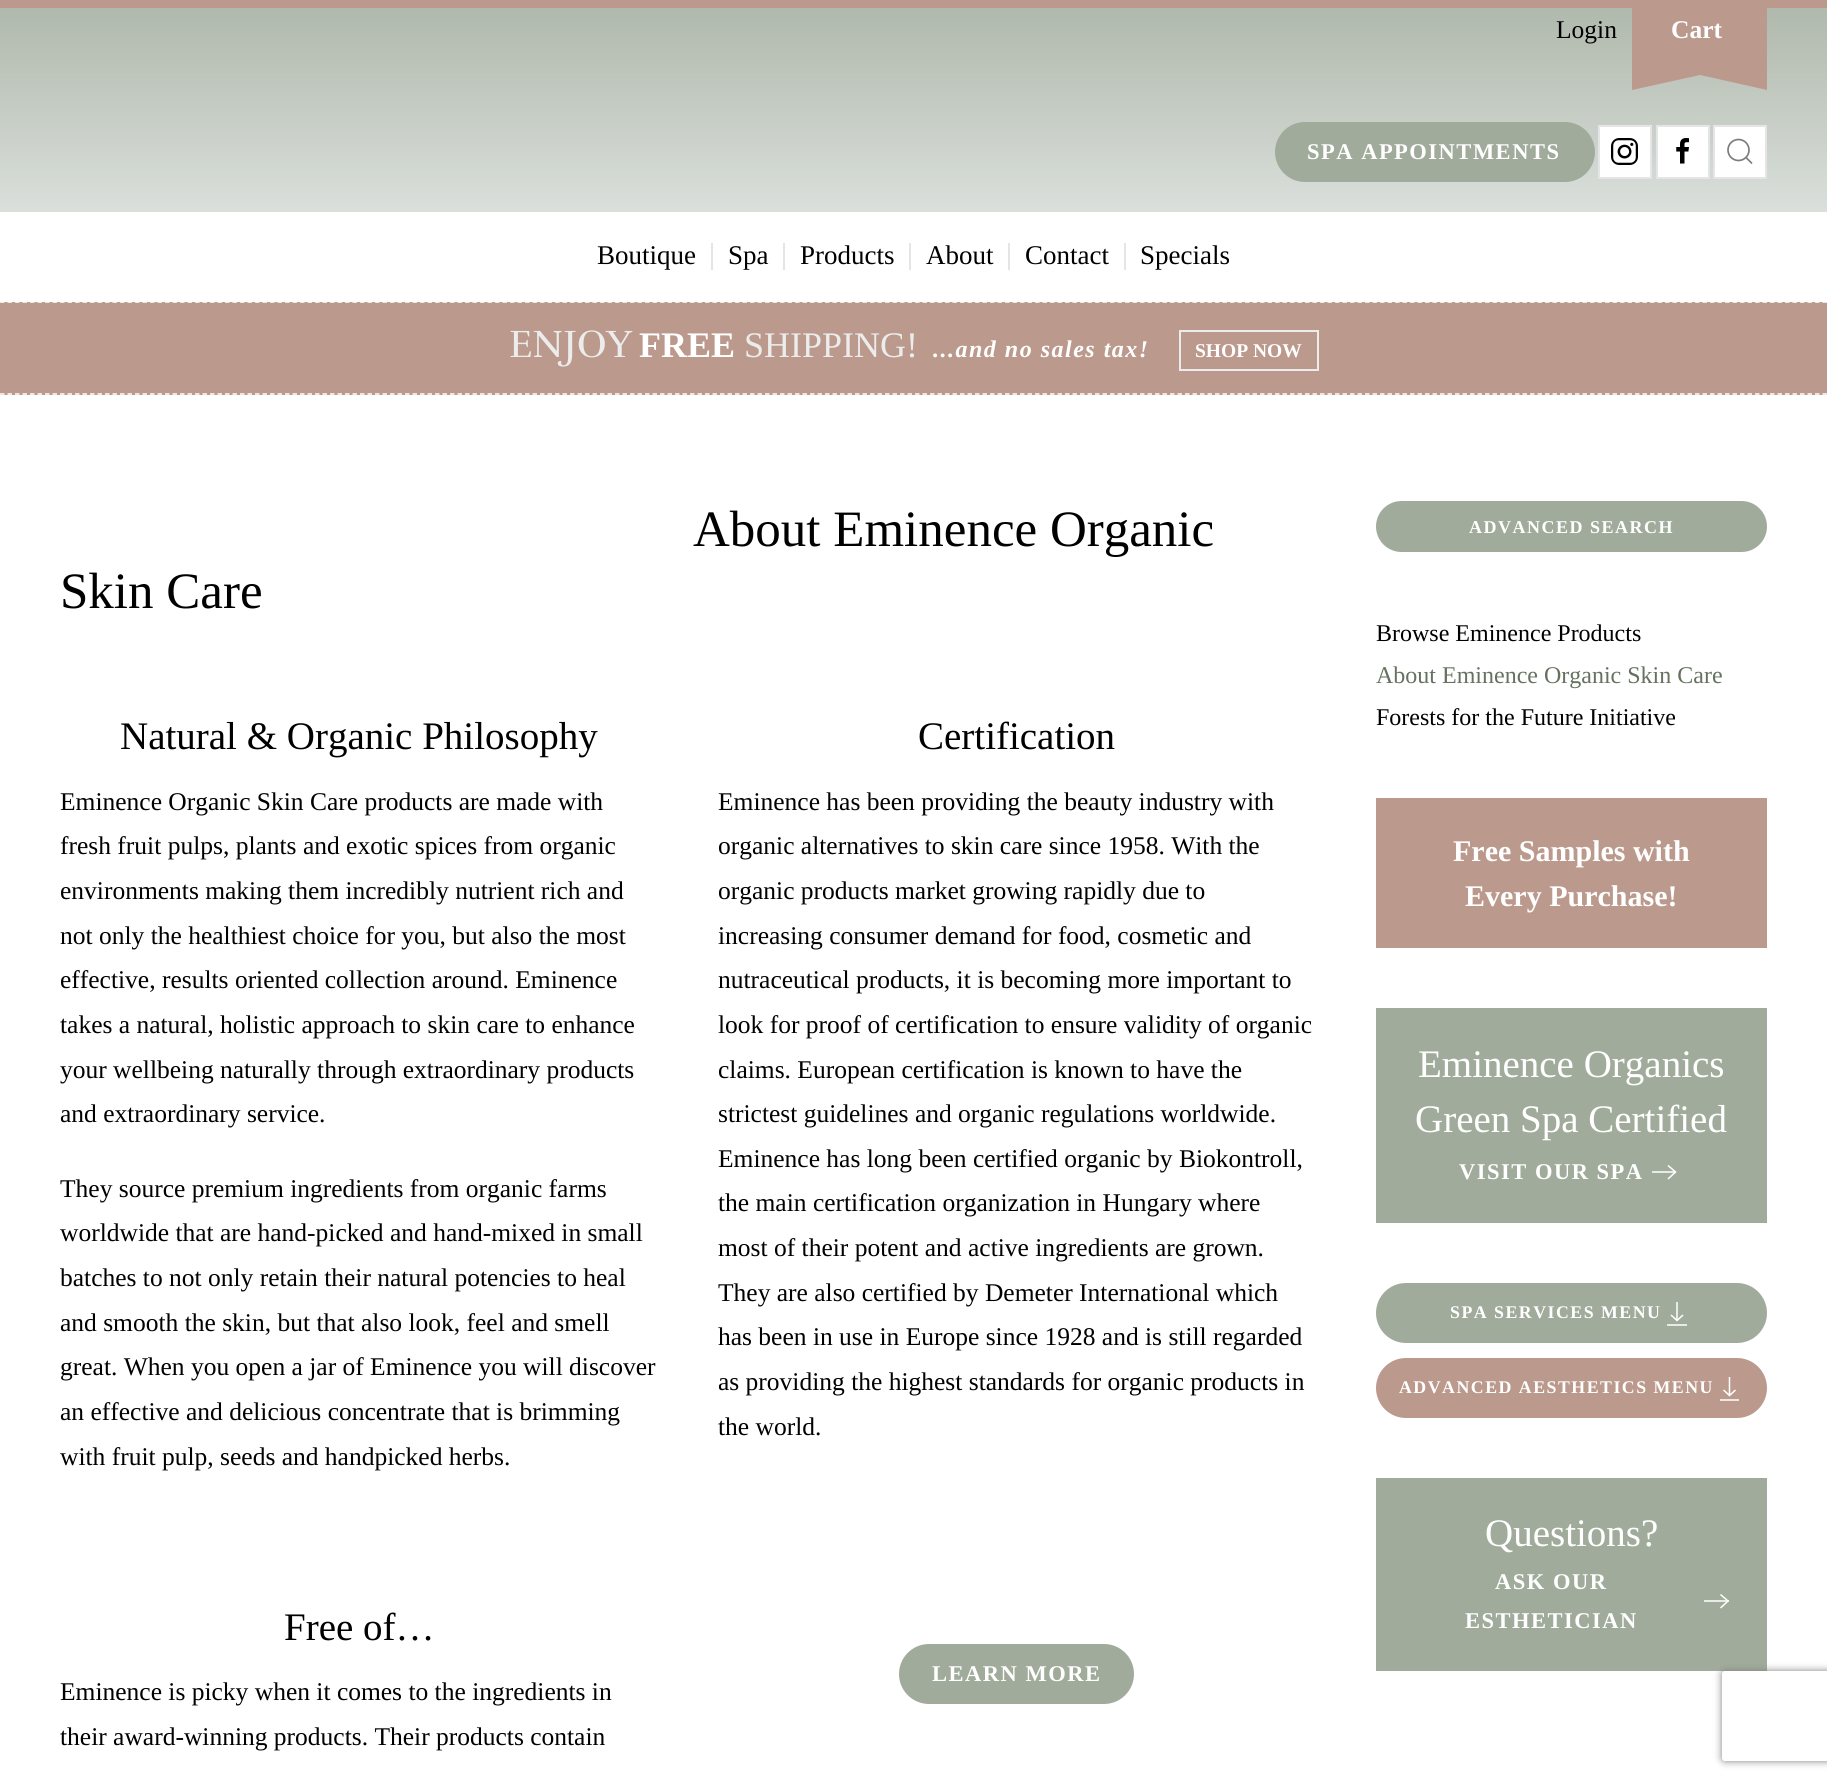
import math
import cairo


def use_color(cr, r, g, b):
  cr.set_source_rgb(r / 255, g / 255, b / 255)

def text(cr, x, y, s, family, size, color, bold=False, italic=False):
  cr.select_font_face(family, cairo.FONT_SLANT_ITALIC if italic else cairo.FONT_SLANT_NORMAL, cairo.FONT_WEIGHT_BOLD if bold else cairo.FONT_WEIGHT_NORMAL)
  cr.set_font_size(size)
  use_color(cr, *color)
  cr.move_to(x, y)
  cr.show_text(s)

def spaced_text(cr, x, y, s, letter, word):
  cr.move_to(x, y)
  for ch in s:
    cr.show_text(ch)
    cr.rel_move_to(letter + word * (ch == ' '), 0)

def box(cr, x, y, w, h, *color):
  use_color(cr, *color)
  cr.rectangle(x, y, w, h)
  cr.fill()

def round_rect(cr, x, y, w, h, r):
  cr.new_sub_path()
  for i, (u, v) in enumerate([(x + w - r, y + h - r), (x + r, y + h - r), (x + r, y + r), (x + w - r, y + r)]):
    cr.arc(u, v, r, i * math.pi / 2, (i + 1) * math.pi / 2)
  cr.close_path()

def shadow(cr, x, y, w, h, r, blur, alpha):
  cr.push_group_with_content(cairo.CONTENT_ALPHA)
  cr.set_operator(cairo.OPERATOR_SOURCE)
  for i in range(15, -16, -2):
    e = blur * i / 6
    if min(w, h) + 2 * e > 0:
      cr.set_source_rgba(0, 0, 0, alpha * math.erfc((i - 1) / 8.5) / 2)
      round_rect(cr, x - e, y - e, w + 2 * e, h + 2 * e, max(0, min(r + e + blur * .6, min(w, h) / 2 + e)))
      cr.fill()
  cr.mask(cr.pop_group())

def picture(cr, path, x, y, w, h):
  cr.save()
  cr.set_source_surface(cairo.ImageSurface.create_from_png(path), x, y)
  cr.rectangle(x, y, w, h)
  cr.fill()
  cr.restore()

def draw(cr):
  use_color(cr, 255, 255, 255)
  cr.paint()
  box(cr, 0, 0, 1827, 8, 187, 154, 141)
  gradient = cairo.LinearGradient(914, 7.5, 914, 212)
  gradient.add_color_stop_rgba(0, 0.69, 0.725, 0.675, 1)
  gradient.add_color_stop_rgba(1, 0.855, 0.875, 0.859, 1)
  cr.set_source(gradient)
  cr.rectangle(0, 8, 1827, 204)
  cr.fill()
  box(cr, 1632, 8, 135, 67, 187, 154, 141)
  cr.new_path()
  cr.move_to(1767, 75)
  cr.line_to(1767, 90)
  cr.line_to(1700, 75)
  cr.close_path()
  cr.fill()
  cr.new_path()
  cr.move_to(1632, 90)
  cr.line_to(1632, 75)
  cr.line_to(1700, 75)
  cr.close_path()
  cr.fill()
  use_color(cr, 161, 171, 155)
  round_rect(cr, 1275, 122, 320, 60, 30)
  cr.fill()
  use_color(cr, 255, 255, 255)
  cr.rectangle(1599, 126, 52, 52)
  cr.fill_preserve()
  use_color(cr, 229, 229, 231)
  cr.stroke()
  picture(cr, "img_01.png", 1611, 138, 27, 27)
  use_color(cr, 255, 255, 255)
  cr.rectangle(1657, 126, 52, 52)
  cr.fill_preserve()
  use_color(cr, 229, 229, 231)
  cr.stroke()
  picture(cr, "img_02.png", 1676, 138, 13, 26)
  use_color(cr, 255, 255, 255)
  cr.rectangle(1714, 126, 52, 52)
  cr.fill_preserve()
  use_color(cr, 229, 229, 231)
  cr.stroke()
  cr.arc(1738.5, 150, 10.5, 0, 2 * math.pi)
  use_color(cr, 124, 124, 124)
  cr.set_line_width(1.7)
  cr.stroke()
  cr.new_path()
  cr.move_to(1746, 157.5)
  cr.line_to(1752, 163.5)
  cr.close_path()
  cr.stroke()
  box(cr, 711, 243, 2, 27, 229, 229, 231)
  box(cr, 783, 243, 2, 27, 229, 229, 231)
  box(cr, 909, 243, 2, 27, 229, 229, 231)
  box(cr, 1008, 243, 2, 27, 229, 229, 231)
  box(cr, 1124, 243, 2, 27, 229, 229, 231)
  box(cr, 0, 302, 1827, 93, 187, 154, 141)
  cr.new_path()
  cr.move_to(0, 302)
  cr.line_to(1827, 302)
  use_color(cr, 255, 255, 255)
  cr.set_line_width(1.5)
  cr.set_dash([4.5, 3])
  cr.stroke()
  cr.new_path()
  cr.move_to(0, 394)
  cr.line_to(1827, 394)
  cr.stroke()
  cr.rectangle(1180, 331, 138, 39)
  use_color(cr, 236, 236, 236)
  cr.set_line_width(2)
  cr.set_dash([])
  cr.stroke()
  use_color(cr, 161, 171, 155)
  round_rect(cr, 899, 1644, 235, 60, 30)
  cr.fill()
  round_rect(cr, 1376, 501, 391, 51, 25.5)
  cr.fill()
  box(cr, 1376, 798, 391, 150, 187, 154, 141)
  box(cr, 1376, 1008, 391, 215, 161, 171, 155)
  cr.new_path()
  cr.move_to(1668, 1165.5)
  cr.line_to(1675.5, 1172)
  cr.line_to(1668, 1179)
  use_color(cr, 255, 255, 255)
  cr.set_line_width(1.5)
  cr.stroke()
  cr.set_source_rgba(1, 1, 1, 0.75)
  cr.rectangle(1652, 1171, 24, 2)
  cr.fill()
  use_color(cr, 161, 171, 155)
  round_rect(cr, 1376, 1283, 391, 60, 30)
  cr.fill()
  box(cr, 1676, 1302, 2, 18, 232, 234, 230)
  cr.new_path()
  cr.move_to(1671, 1315)
  cr.line_to(1677, 1320.5)
  cr.line_to(1683, 1315)
  use_color(cr, 255, 255, 255)
  cr.stroke()
  box(cr, 1667, 1324, 20, 2, 232, 234, 230)
  use_color(cr, 187, 154, 141)
  round_rect(cr, 1376, 1358, 391, 60, 30)
  cr.fill()
  cr.new_path()
  cr.move_to(1729.5, 1377)
  cr.line_to(1729.5, 1395)
  cr.move_to(1723.5, 1390)
  cr.line_to(1729.5, 1395.5)
  cr.line_to(1735.5, 1390)
  use_color(cr, 255, 255, 255)
  cr.stroke()
  box(cr, 1720, 1399, 19, 2, 238, 230, 227)
  box(cr, 1376, 1478, 391, 193, 161, 171, 155)
  cr.new_path()
  cr.move_to(1720.5, 1594.5)
  cr.line_to(1728, 1601)
  cr.line_to(1720.5, 1608)
  use_color(cr, 255, 255, 255)
  cr.stroke()
  cr.set_source_rgba(1, 1, 1, 0.75)
  cr.rectangle(1704, 1600, 25, 2)
  cr.fill()
  cr.save()
  cr.set_fill_rule(cairo.FILL_RULE_EVEN_ODD)
  cr.new_path()
  cr.move_to(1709, 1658)
  cr.line_to(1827, 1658)
  cr.line_to(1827, 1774)
  cr.line_to(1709, 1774)
  cr.close_path()
  cr.move_to(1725, 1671)
  cr.line_to(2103, 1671)
  cr.curve_to(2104.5, 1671, 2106, 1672.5, 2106, 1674)
  cr.line_to(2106, 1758)
  cr.curve_to(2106, 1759.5, 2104.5, 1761, 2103, 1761)
  cr.line_to(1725, 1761)
  cr.curve_to(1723.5, 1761, 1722, 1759.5, 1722, 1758)
  cr.line_to(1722, 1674)
  cr.curve_to(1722, 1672.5, 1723.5, 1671, 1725, 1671)
  cr.close_path()
  cr.clip()
  use_color(cr, 128, 128, 128)
  shadow(cr, 1722, 1671, 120, 90, 3, 4, 1)
  cr.restore()
  text(cr, 1556, 38, "Login", "Liberation Serif", 25.5, (0, 0, 0))
  text(cr, 1671, 38, "Cart", "Liberation Serif", 25.5, (255, 255, 255), bold=True)
  cr.set_font_size(22.5)
  spaced_text(cr, 1307, 159, "SPA APPOINTMENTS", 1.5, 0)
  text(cr, 597, 264, "Boutique", "Liberation Serif", 27, (0, 0, 0))
  text(cr, 728, 264, "Spa", "Liberation Serif", 27, (0, 0, 0))
  text(cr, 800, 264, "Products", "Liberation Serif", 27, (0, 0, 0))
  text(cr, 926, 264, "About", "Liberation Serif", 27, (0, 0, 0))
  text(cr, 1025, 264, "Contact", "Liberation Serif", 27, (0, 0, 0))
  text(cr, 1140, 264, "Specials", "Liberation Serif", 27, (0, 0, 0))
  text(cr, 509, 357, "ENJOY", "Rufina", 39, (236, 236, 236))
  text(cr, 639, 357, "FREE", "Liberation Serif", 36, (255, 255, 255), bold=True)
  text(cr, 744, 357, "SHIPPING!", "Liberation Serif", 36, (236, 236, 236))
  cr.select_font_face("Liberation Serif", cairo.FONT_SLANT_ITALIC, cairo.FONT_WEIGHT_BOLD)
  cr.set_font_size(24)
  use_color(cr, 255, 255, 255)
  spaced_text(cr, 933, 357, "...and no sales tax!", 1.5, 0)
  text(cr, 1195, 357, "SHOP NOW", "Liberation Serif", 19.5, (255, 255, 255), bold=True)
  text(cr, 693, 546, "About Eminence Organic", "Liberation Serif", 51, (0, 0, 0))
  text(cr, 60, 608, "Skin Care", "Liberation Serif", 51, (0, 0, 0))
  text(cr, 120, 749, "Natural & Organic Philosophy", "Liberation Serif", 39, (0, 0, 0))
  text(cr, 60, 810, "Eminence Organic Skin Care products are made with", "Liberation Serif", 25.5, (0, 0, 0))
  text(cr, 60, 854, "fresh fruit pulps, plants and exotic spices from organic", "Liberation Serif", 25.5, (0, 0, 0))
  text(cr, 60, 899, "environments making them incredibly nutrient rich and", "Liberation Serif", 25.5, (0, 0, 0))
  text(cr, 60, 944, "not only the healthiest choice for you, but also the most", "Liberation Serif", 25.5, (0, 0, 0))
  text(cr, 60, 988, "effective, results oriented collection around. Eminence", "Liberation Serif", 25.5, (0, 0, 0))
  text(cr, 60, 1033, "takes a natural, holistic approach to skin care to enhance", "Liberation Serif", 25.5, (0, 0, 0))
  text(cr, 60, 1078, "your wellbeing naturally through extraordinary products", "Liberation Serif", 25.5, (0, 0, 0))
  text(cr, 60, 1122, "and extraordinary service.", "Liberation Serif", 25.5, (0, 0, 0))
  text(cr, 60, 1197, "They source premium ingredients from organic farms", "Liberation Serif", 25.5, (0, 0, 0))
  text(cr, 60, 1241, "worldwide that are hand-picked and hand-mixed in small", "Liberation Serif", 25.5, (0, 0, 0))
  text(cr, 60, 1286, "batches to not only retain their natural potencies to heal", "Liberation Serif", 25.5, (0, 0, 0))
  text(cr, 60, 1331, "and smooth the skin, but that also look, feel and smell", "Liberation Serif", 25.5, (0, 0, 0))
  text(cr, 60, 1375, "great. When you open a jar of Eminence you will discover", "Liberation Serif", 25.5, (0, 0, 0))
  text(cr, 60, 1420, "an effective and delicious concentrate that is brimming", "Liberation Serif", 25.5, (0, 0, 0))
  text(cr, 60, 1465, "with fruit pulp, seeds and handpicked herbs.", "Liberation Serif", 25.5, (0, 0, 0))
  text(cr, 918, 749, "Certification", "Liberation Serif", 39, (0, 0, 0))
  text(cr, 718, 810, "Eminence has been providing the beauty industry with", "Liberation Serif", 25.5, (0, 0, 0))
  text(cr, 718, 854, "organic alternatives to skin care since 1958. With the", "Liberation Serif", 25.5, (0, 0, 0))
  text(cr, 718, 899, "organic products market growing rapidly due to", "Liberation Serif", 25.5, (0, 0, 0))
  text(cr, 718, 944, "increasing consumer demand for food, cosmetic and", "Liberation Serif", 25.5, (0, 0, 0))
  text(cr, 718, 988, "nutraceutical products, it is becoming more important to", "Liberation Serif", 25.5, (0, 0, 0))
  text(cr, 718, 1033, "look for proof of certification to ensure validity of organic", "Liberation Serif", 25.5, (0, 0, 0))
  text(cr, 718, 1078, "claims. European certification is known to have the", "Liberation Serif", 25.5, (0, 0, 0))
  text(cr, 718, 1122, "strictest guidelines and organic regulations worldwide.", "Liberation Serif", 25.5, (0, 0, 0))
  text(cr, 718, 1167, "Eminence has long been certified organic by Biokontroll,", "Liberation Serif", 25.5, (0, 0, 0))
  text(cr, 718, 1211, "the main certification organization in Hungary where", "Liberation Serif", 25.5, (0, 0, 0))
  text(cr, 718, 1256, "most of their potent and active ingredients are grown.", "Liberation Serif", 25.5, (0, 0, 0))
  text(cr, 718, 1301, "They are also certified by Demeter International which", "Liberation Serif", 25.5, (0, 0, 0))
  text(cr, 718, 1345, "has been in use in Europe since 1928 and is still regarded", "Liberation Serif", 25.5, (0, 0, 0))
  text(cr, 718, 1390, "as providing the highest standards for organic products in", "Liberation Serif", 25.5, (0, 0, 0))
  text(cr, 718, 1435, "the world.", "Liberation Serif", 25.5, (0, 0, 0))
  text(cr, 284, 1640, "Free of…", "Liberation Serif", 39, (0, 0, 0))
  text(cr, 60, 1700, "Eminence is picky when it comes to the ingredients in", "Liberation Serif", 25.5, (0, 0, 0))
  text(cr, 60, 1745, "their award-winning products. Their products contain", "Liberation Serif", 25.5, (0, 0, 0))
  cr.select_font_face("Liberation Serif", cairo.FONT_SLANT_NORMAL, cairo.FONT_WEIGHT_BOLD)
  cr.set_font_size(22.5)
  use_color(cr, 255, 255, 255)
  spaced_text(cr, 932, 1681, "LEARN MORE", 1.5, 0)
  cr.set_font_size(18)
  spaced_text(cr, 1469, 533, "ADVANCED SEARCH", 1.5, 0)
  text(cr, 1376, 641, "Browse Eminence Products", "Liberation Serif", 24, (0, 0, 0))
  text(cr, 1376, 683, "About Eminence Organic Skin Care", "Liberation Serif", 24, (100, 114, 95))
  text(cr, 1376, 725, "Forests for the Future Initiative", "Liberation Serif", 24, (0, 0, 0))
  text(cr, 1453, 861, "Free Samples with", "Liberation Serif", 30, (255, 255, 255), bold=True)
  text(cr, 1465, 906, "Every Purchase!", "Liberation Serif", 30, (255, 255, 255), bold=True)
  text(cr, 1418, 1077, "Eminence Organics", "Liberation Serif", 39, (255, 255, 255))
  text(cr, 1415, 1132, "Green Spa Certified", "Liberation Serif", 39, (255, 255, 255))
  cr.select_font_face("Liberation Serif", cairo.FONT_SLANT_NORMAL, cairo.FONT_WEIGHT_BOLD)
  cr.set_font_size(22.5)
  spaced_text(cr, 1459, 1179, "VISIT OUR SPA", 1.5, 0)
  cr.set_font_size(17.8)
  spaced_text(cr, 1450, 1318, "SPA SERVICES MENU", 1.5, 0)
  spaced_text(cr, 1399, 1393, "ADVANCED AESTHETICS MENU", 1.5, 0)
  text(cr, 1485, 1546, "Questions?", "Liberation Serif", 39, (255, 255, 255))
  cr.select_font_face("Liberation Serif", cairo.FONT_SLANT_NORMAL, cairo.FONT_WEIGHT_BOLD)
  cr.set_font_size(22.5)
  spaced_text(cr, 1495, 1589, "ASK OUR", 1.5, 0)
  spaced_text(cr, 1465, 1628, "ESTHETICIAN", 1.5, 0)


surface = cairo.ImageSurface(cairo.FORMAT_RGB24, 1827, 1781)
cr = cairo.Context(surface)
options = cairo.FontOptions()
options.set_hint_metrics(cairo.HINT_METRICS_OFF)
options.set_hint_style(cairo.HINT_STYLE_NONE)
cr.set_font_options(options)
cr.set_miter_limit(4)
draw(cr)
surface.write_to_png("out.png")
